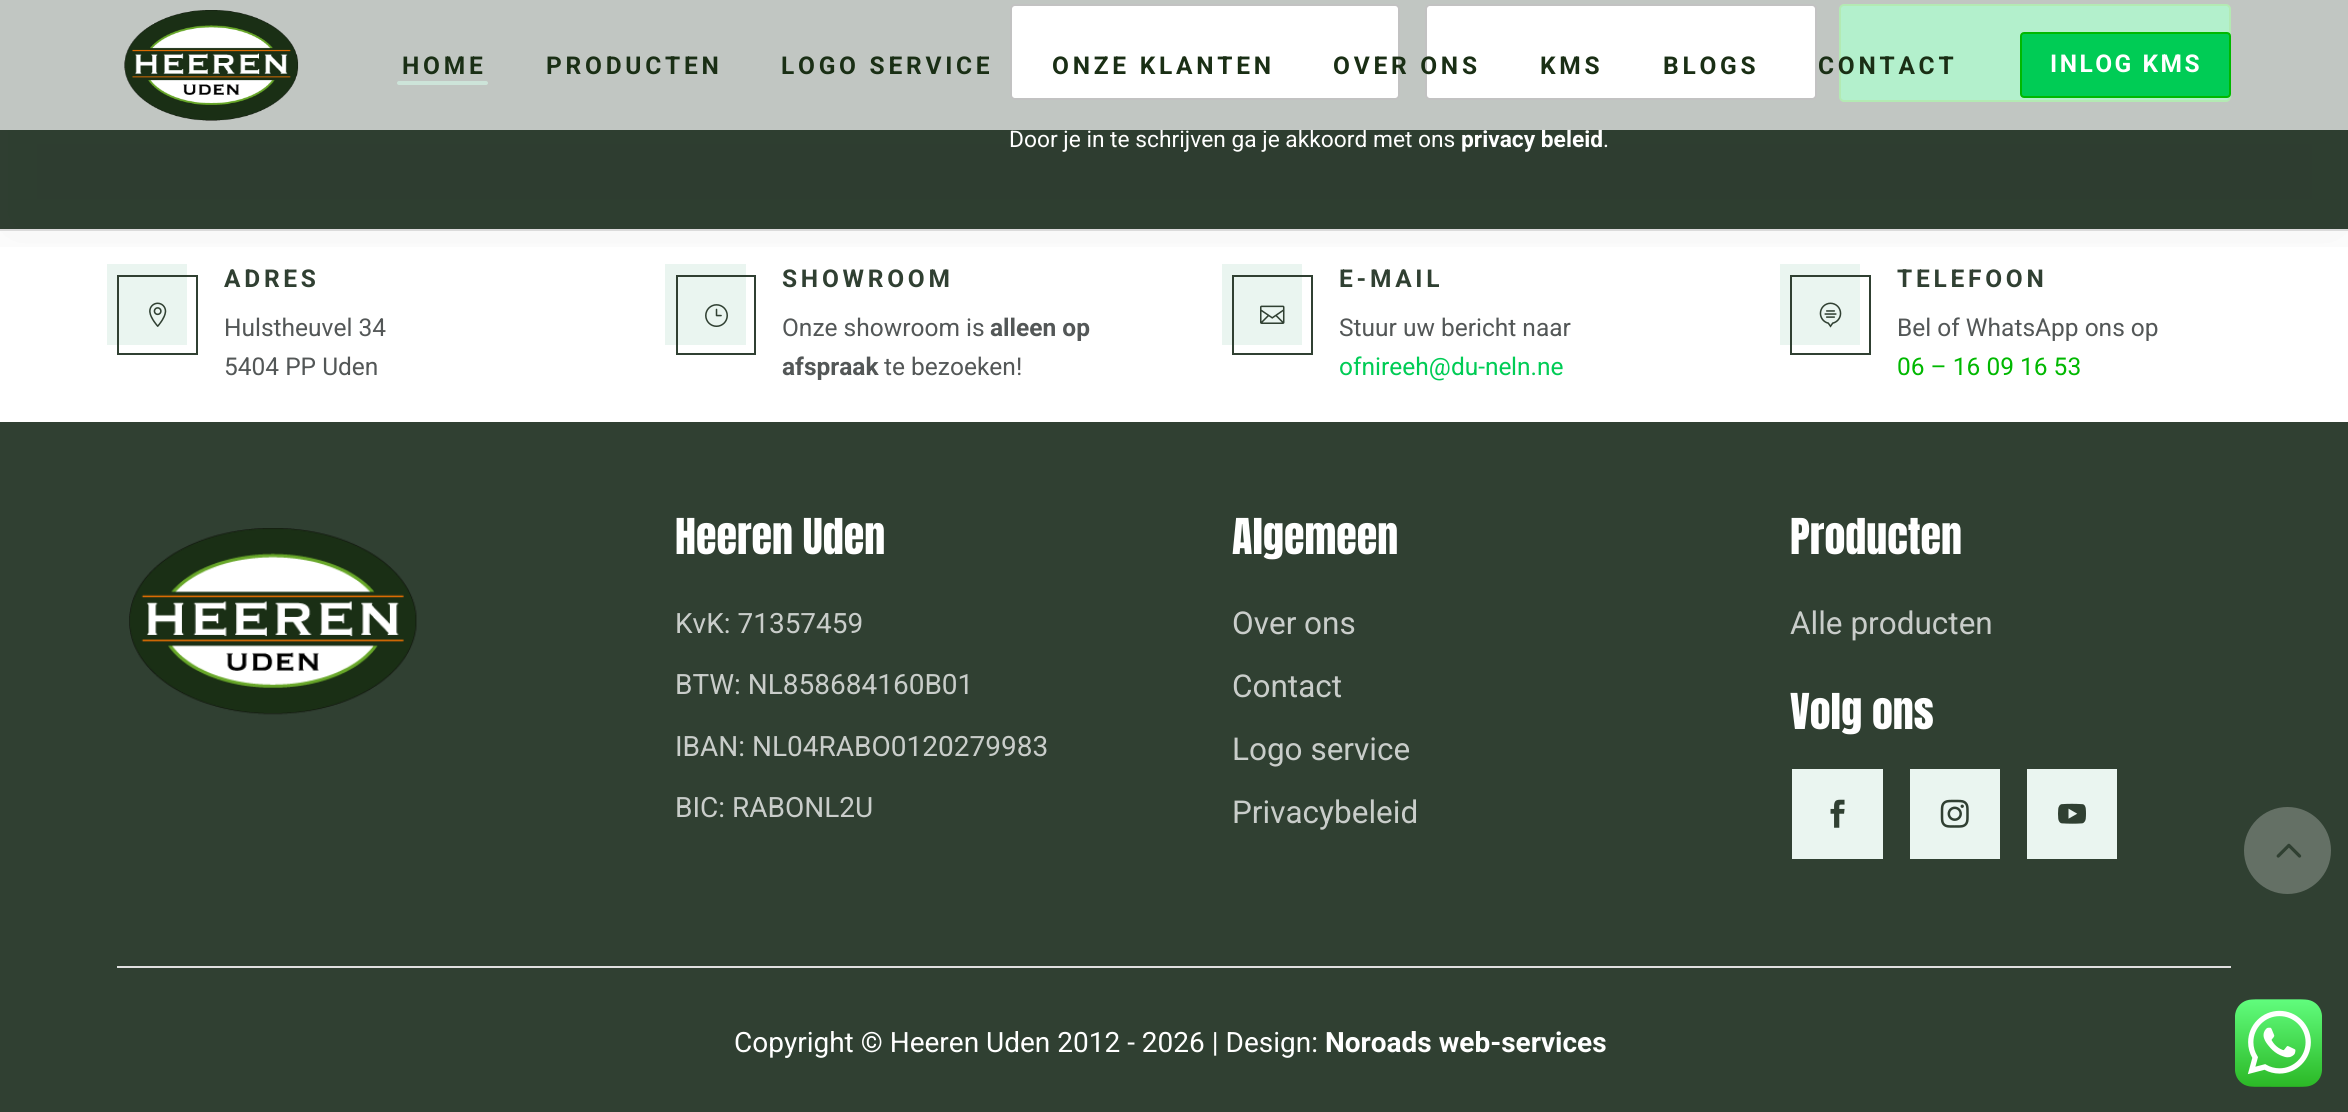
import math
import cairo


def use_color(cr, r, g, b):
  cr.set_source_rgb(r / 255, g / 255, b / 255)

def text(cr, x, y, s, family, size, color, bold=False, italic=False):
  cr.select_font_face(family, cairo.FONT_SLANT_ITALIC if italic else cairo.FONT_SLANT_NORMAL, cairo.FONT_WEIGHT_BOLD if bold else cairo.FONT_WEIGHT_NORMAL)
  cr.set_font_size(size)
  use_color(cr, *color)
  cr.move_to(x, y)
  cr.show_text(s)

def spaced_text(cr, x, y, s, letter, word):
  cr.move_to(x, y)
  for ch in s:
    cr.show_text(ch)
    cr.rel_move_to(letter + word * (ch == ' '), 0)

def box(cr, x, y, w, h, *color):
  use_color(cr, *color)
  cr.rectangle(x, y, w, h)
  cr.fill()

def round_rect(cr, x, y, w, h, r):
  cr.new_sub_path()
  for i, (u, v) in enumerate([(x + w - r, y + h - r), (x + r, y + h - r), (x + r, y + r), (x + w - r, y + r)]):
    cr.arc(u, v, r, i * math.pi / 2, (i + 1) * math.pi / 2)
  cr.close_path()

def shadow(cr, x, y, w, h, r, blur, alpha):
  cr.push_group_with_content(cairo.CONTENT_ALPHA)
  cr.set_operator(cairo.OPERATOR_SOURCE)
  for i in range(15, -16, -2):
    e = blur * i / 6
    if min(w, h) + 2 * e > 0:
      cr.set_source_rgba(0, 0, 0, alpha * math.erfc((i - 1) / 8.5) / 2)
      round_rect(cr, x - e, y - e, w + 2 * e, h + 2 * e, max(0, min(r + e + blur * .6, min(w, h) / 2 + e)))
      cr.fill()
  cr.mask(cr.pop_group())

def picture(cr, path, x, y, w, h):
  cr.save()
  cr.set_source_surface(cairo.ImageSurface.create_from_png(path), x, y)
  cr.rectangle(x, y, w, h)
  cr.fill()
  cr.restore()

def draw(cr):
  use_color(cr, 255, 255, 255)
  cr.paint()
  box(cr, 0, 0, 2348, 229, 48, 64, 50)
  use_color(cr, 255, 255, 255)
  round_rect(cr, 1011, 5, 388, 94, 4)
  cr.fill_preserve()
  use_color(cr, 51, 51, 51)
  cr.stroke()
  use_color(cr, 255, 255, 255)
  round_rect(cr, 1426, 5, 390, 94, 4)
  cr.fill_preserve()
  use_color(cr, 51, 51, 51)
  cr.stroke()
  use_color(cr, 0, 204, 85)
  round_rect(cr, 1840, 5, 390, 96, 4)
  cr.fill_preserve()
  use_color(cr, 0, 184, 0)
  cr.stroke()
  box(cr, 0, 229, 2348, 2, 224, 224, 224)
  box(cr, 107, 264, 80, 81, 234, 245, 240)
  cr.rectangle(118, 276, 79, 78)
  use_color(cr, 48, 64, 50)
  cr.stroke()
  picture(cr, "img_02.png", 149, 302, 18, 25)
  box(cr, 665, 264, 81, 81, 234, 245, 240)
  cr.rectangle(677, 276, 78, 78)
  use_color(cr, 48, 64, 50)
  cr.stroke()
  picture(cr, "img_03.png", 705, 304, 23, 23)
  box(cr, 1222, 264, 80, 81, 234, 245, 240)
  cr.rectangle(1233, 276, 79, 78)
  use_color(cr, 48, 64, 50)
  cr.stroke()
  picture(cr, "img_04.png", 1260, 305, 25, 19)
  box(cr, 1780, 264, 80, 81, 234, 245, 240)
  cr.rectangle(1791, 276, 79, 78)
  use_color(cr, 48, 64, 50)
  cr.stroke()
  picture(cr, "img_05.png", 1819, 302, 23, 26)
  cr.save()
  cr.rectangle(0, 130, 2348, 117)
  cr.clip()
  use_color(cr, 0, 0, 0)
  shadow(cr, 0, 107, 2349, 129, 0, 44, 0.05)
  cr.restore()
  box(cr, 0, 422, 2348, 690, 48, 64, 50)
  picture(cr, "img_06.png", 129, 528, 288, 187)
  box(cr, 1792, 769, 91, 90, 234, 245, 240)
  picture(cr, "img_07.png", 1830, 799, 15, 29)
  box(cr, 1910, 769, 90, 90, 234, 245, 240)
  picture(cr, "img_08.png", 1940, 799, 29, 29)
  box(cr, 2027, 769, 90, 90, 234, 245, 240)
  picture(cr, "img_09.png", 2058, 803, 28, 21)
  box(cr, 117, 966, 2114, 2, 224, 224, 224)
  use_color(cr, 100, 112, 101)
  cr.arc(2287.5, 850.5, 43.5, 0, 2 * math.pi)
  cr.fill()
  picture(cr, "img_10.png", 2276, 843, 26, 15)
  picture(cr, "img_11.png", 2235, 999, 87, 88)
  text(cr, 1009, 147, "Door je in te schrijven ga je akkoord met ons", "Roboto", 22.75, (255, 255, 255))
  text(cr, 1461, 147, "privacy beleid", "Roboto", 22.75, (255, 255, 255), bold=True)
  cr.set_source_rgba(1, 1, 1, 0.7)
  cr.rectangle(0, 0, 2348, 130)
  cr.fill()
  use_color(cr, 0, 204, 85)
  round_rect(cr, 2021, 33, 209, 64, 3)
  cr.fill_preserve()
  use_color(cr, 0, 184, 0)
  cr.stroke()
  cr.set_font_size(24.5)
  use_color(cr, 255, 255, 255)
  spaced_text(cr, 2050, 72, "INLOG KMS", 2.5, 0)
  use_color(cr, 26, 47, 21)
  spaced_text(cr, 1818, 74, "CONTACT", 3.75, 0)
  spaced_text(cr, 1663, 74, "BLOGS", 3.75, 0)
  spaced_text(cr, 1540, 74, "KMS", 3.75, 0)
  spaced_text(cr, 1333, 74, "OVER ONS", 3.75, 0)
  spaced_text(cr, 1052, 74, "ONZE KLANTEN", 3.75, 0)
  spaced_text(cr, 781, 74, "LOGO SERVICE", 3.75, 0)
  spaced_text(cr, 546, 74, "PRODUCTEN", 3.75, 0)
  spaced_text(cr, 402, 74, "HOME", 3.75, 0)
  picture(cr, "img_01.png", 124, 10, 175, 111)
  use_color(cr, 205, 228, 217)
  round_rect(cr, 397, 81, 91, 4, 2)
  cr.fill()
  text(cr, 1603, 147, ".", "Roboto", 22.75, (255, 255, 255))
  cr.select_font_face("Roboto", cairo.FONT_SLANT_NORMAL, cairo.FONT_WEIGHT_BOLD)
  cr.set_font_size(24.5)
  use_color(cr, 48, 64, 50)
  spaced_text(cr, 224, 287, "ADRES", 3.75, 0)
  text(cr, 224, 336, "Hulstheuvel 34", "Roboto", 24.5, (83, 87, 87))
  text(cr, 224, 375, "5404 PP Uden", "Roboto", 24.5, (83, 87, 87))
  cr.select_font_face("Roboto", cairo.FONT_SLANT_NORMAL, cairo.FONT_WEIGHT_BOLD)
  use_color(cr, 48, 64, 50)
  spaced_text(cr, 782, 287, "SHOWROOM", 3.75, 0)
  text(cr, 782, 336, "Onze showroom is", "Roboto", 24.5, (83, 87, 87))
  text(cr, 990, 336, "alleen op", "Roboto", 24.5, (83, 87, 87), bold=True)
  text(cr, 782, 375, "afspraak", "Roboto", 24.5, (83, 87, 87), bold=True)
  text(cr, 884, 375, "te bezoeken!", "Roboto", 24.5, (83, 87, 87))
  cr.select_font_face("Roboto", cairo.FONT_SLANT_NORMAL, cairo.FONT_WEIGHT_BOLD)
  use_color(cr, 48, 64, 50)
  spaced_text(cr, 1339, 287, "E-MAIL", 3.75, 0)
  text(cr, 1339, 336, "Stuur uw bericht naar", "Roboto", 24.5, (83, 87, 87))
  text(cr, 1339, 375, "ofni", "Roboto", 24.5, (0, 204, 85))
  text(cr, 1381, 375, "reeh@", "Roboto", 24.5, (0, 204, 85))
  text(cr, 1451, 375, "du-ne", "Roboto", 24.5, (0, 204, 85))
  text(cr, 1511, 375, "ln.ne", "Roboto", 24.5, (0, 204, 85))
  cr.select_font_face("Roboto", cairo.FONT_SLANT_NORMAL, cairo.FONT_WEIGHT_BOLD)
  use_color(cr, 48, 64, 50)
  spaced_text(cr, 1897, 287, "TELEFOON", 3.75, 0)
  text(cr, 1897, 336, "Bel of WhatsApp ons op", "Roboto", 24.5, (83, 87, 87))
  text(cr, 1897, 375, "06 – 16 09 16 53", "Roboto", 24.5, (0, 184, 0))
  text(cr, 675, 554, "Heeren Uden", "Anton", 42, (255, 255, 255))
  text(cr, 675, 633, "KvK: 71357459", "Roboto", 28, (201, 205, 202))
  text(cr, 675, 694, "BTW: NL858684160B01", "Roboto", 28, (201, 205, 202))
  text(cr, 675, 756, "IBAN: NL04RABO0120279983", "Roboto", 28, (201, 205, 202))
  text(cr, 675, 817, "BIC: RABONL2U", "Roboto", 28, (201, 205, 202))
  text(cr, 1232, 554, "Algemeen", "Anton", 42, (255, 255, 255))
  text(cr, 1232, 634, "Over ons", "Roboto", 31.5, (201, 205, 202))
  text(cr, 1232, 697, "Contact", "Roboto", 31.5, (201, 205, 202))
  text(cr, 1232, 760, "Logo service", "Roboto", 31.5, (201, 205, 202))
  text(cr, 1232, 823, "Privacybeleid", "Roboto", 31.5, (201, 205, 202))
  text(cr, 1790, 554, "Producten", "Anton", 42, (255, 255, 255))
  text(cr, 1790, 634, "Alle producten", "Roboto", 31.5, (201, 205, 202))
  text(cr, 1790, 729, "Volg ons", "Anton", 42, (255, 255, 255))
  text(cr, 734, 1052, "Copyright © Heeren Uden 2012 - 2026 | Design:", "Roboto", 28, (255, 255, 255))
  text(cr, 1325, 1052, "Noroads web-services", "Roboto", 28, (255, 255, 255), bold=True)


surface = cairo.ImageSurface(cairo.FORMAT_RGB24, 2348, 1112)
cr = cairo.Context(surface)
options = cairo.FontOptions()
options.set_hint_metrics(cairo.HINT_METRICS_OFF)
options.set_hint_style(cairo.HINT_STYLE_NONE)
cr.set_font_options(options)
cr.set_miter_limit(4)
draw(cr)
surface.write_to_png("out.png")
